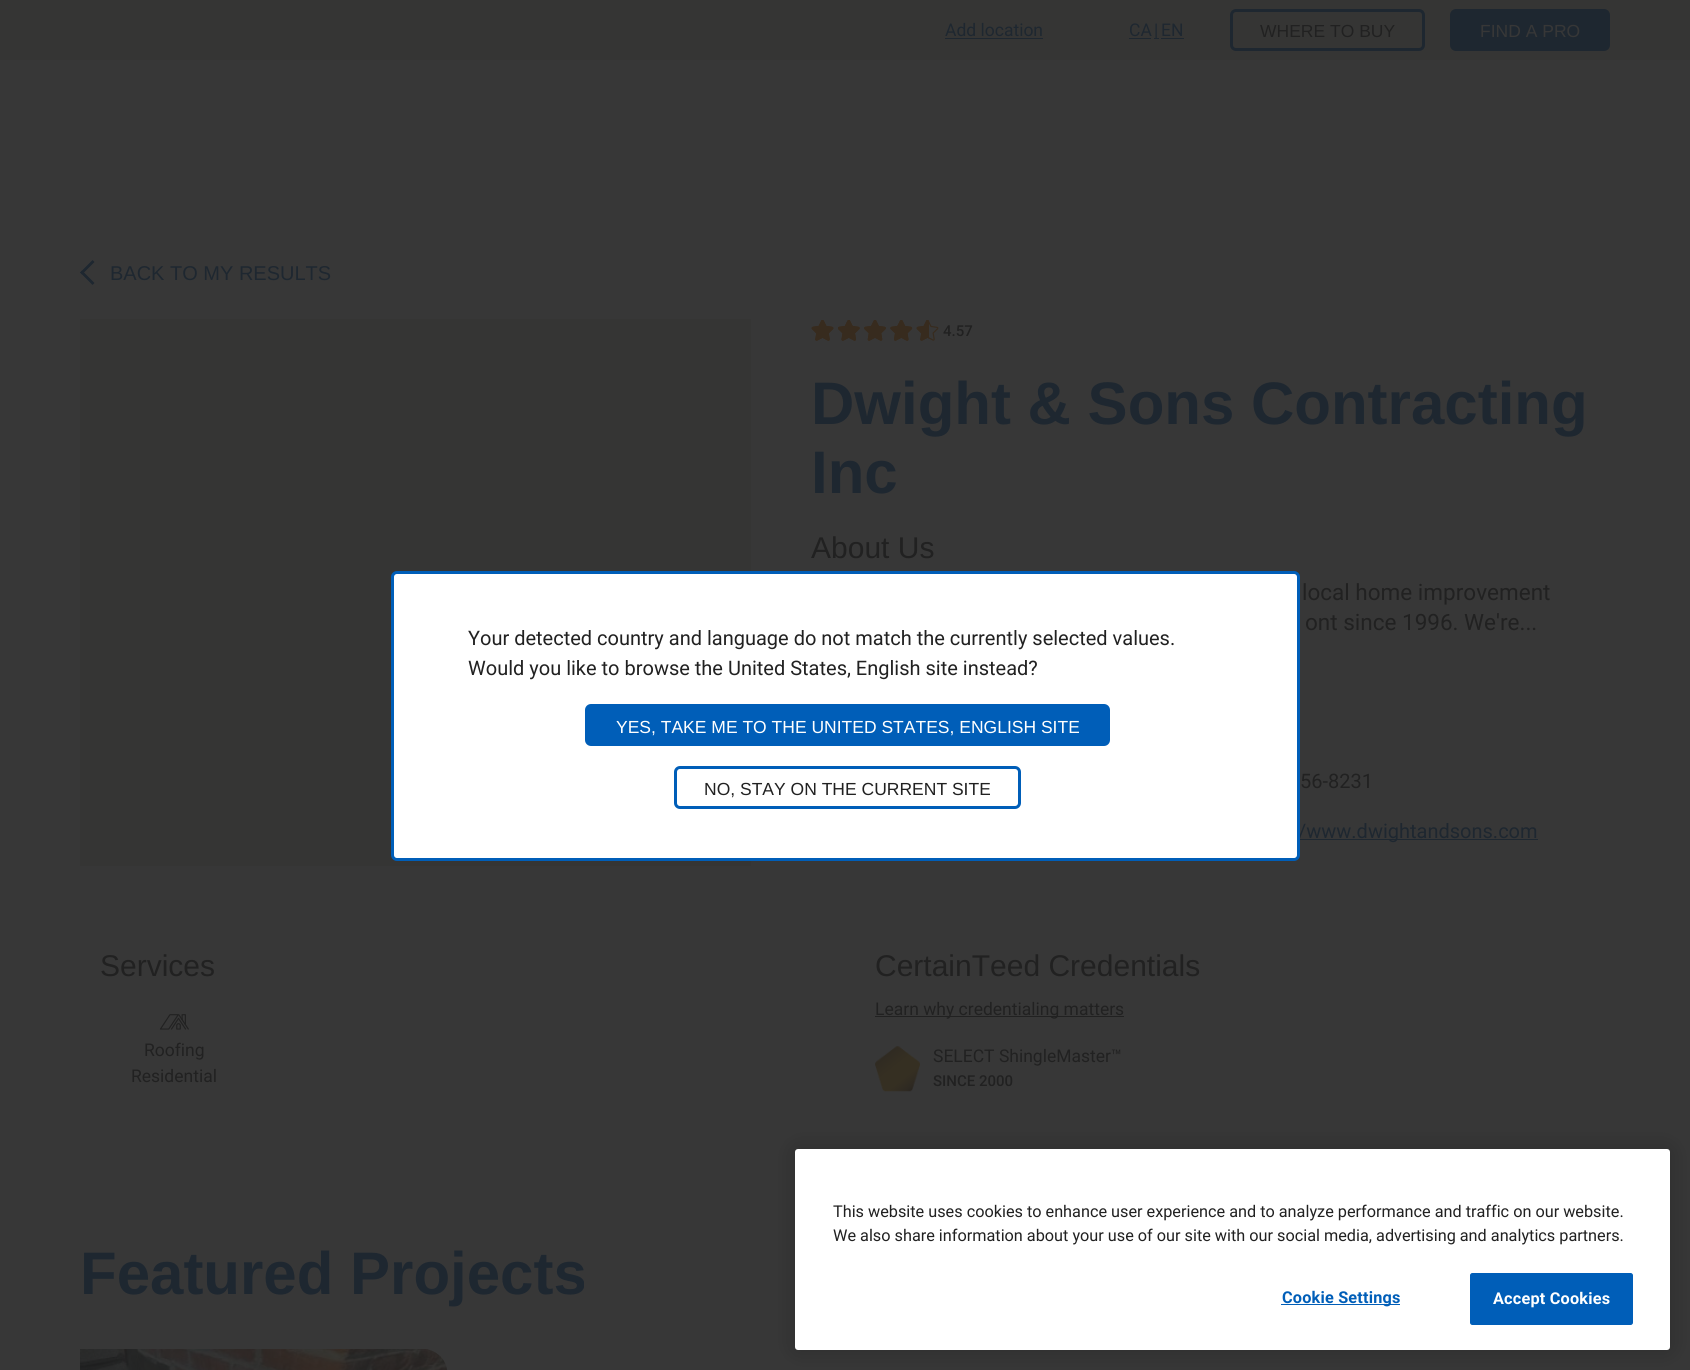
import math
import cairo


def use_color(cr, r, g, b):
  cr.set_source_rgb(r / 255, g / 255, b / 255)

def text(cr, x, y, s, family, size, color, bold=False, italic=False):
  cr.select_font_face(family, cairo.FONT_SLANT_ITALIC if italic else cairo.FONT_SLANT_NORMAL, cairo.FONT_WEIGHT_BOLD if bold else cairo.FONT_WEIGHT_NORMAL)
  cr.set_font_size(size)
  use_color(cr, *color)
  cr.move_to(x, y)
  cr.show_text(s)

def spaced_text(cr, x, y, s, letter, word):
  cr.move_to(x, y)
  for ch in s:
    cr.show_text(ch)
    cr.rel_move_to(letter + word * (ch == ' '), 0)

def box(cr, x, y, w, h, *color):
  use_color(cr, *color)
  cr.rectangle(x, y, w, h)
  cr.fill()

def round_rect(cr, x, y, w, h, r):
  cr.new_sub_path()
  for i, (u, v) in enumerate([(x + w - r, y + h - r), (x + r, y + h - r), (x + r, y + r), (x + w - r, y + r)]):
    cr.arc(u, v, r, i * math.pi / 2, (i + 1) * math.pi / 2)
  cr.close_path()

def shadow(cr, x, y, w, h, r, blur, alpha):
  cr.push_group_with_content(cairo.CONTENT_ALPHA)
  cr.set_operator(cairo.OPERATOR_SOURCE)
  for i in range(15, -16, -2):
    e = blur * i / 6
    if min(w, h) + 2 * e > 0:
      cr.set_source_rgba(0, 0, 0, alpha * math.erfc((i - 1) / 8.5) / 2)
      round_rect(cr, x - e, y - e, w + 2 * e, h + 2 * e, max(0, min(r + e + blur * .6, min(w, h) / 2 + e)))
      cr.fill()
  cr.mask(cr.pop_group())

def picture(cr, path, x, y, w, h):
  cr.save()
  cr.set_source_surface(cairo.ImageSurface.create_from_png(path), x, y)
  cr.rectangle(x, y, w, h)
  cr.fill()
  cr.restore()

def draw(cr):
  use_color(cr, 55, 55, 55)
  cr.paint()
  box(cr, 0, 0, 1690, 60, 53, 53, 52)
  box(cr, 945, 38, 98, 1, 30, 39, 48)
  box(cr, 1129, 38, 22, 1, 30, 39, 48)
  box(cr, 1154, 38, 5, 1, 30, 39, 48)
  box(cr, 1161, 38, 23, 1, 30, 39, 48)
  round_rect(cr, 1231.5, 10.5, 192, 39, 4.5)
  cr.set_line_width(3)
  cr.stroke()
  round_rect(cr, 1451.5, 10.5, 157, 39, 4.5)
  cr.fill_preserve()
  cr.stroke()
  cr.new_path()
  cr.move_to(94.5, 283)
  cr.line_to(92.5, 285)
  cr.line_to(80, 272.5)
  cr.line_to(82, 270.5)
  cr.close_path()
  cr.fill()
  cr.new_path()
  cr.move_to(94.5, 262)
  cr.line_to(82, 274.5)
  cr.line_to(80, 272.5)
  cr.line_to(92.5, 260)
  cr.close_path()
  cr.fill()
  box(cr, 80, 319, 671, 547, 53, 53, 52)
  picture(cr, "img_01.png", 811, 320, 23, 21)
  picture(cr, "img_02.png", 838, 320, 22, 21)
  picture(cr, "img_03.png", 864, 320, 22, 21)
  picture(cr, "img_04.png", 890, 320, 23, 21)
  picture(cr, "img_05.png", 916, 320, 23, 21)
  box(cr, 1300, 839, 238, 1, 30, 39, 48)
  picture(cr, "img_06.png", 159, 1014, 30, 16)
  box(cr, 875, 1016, 249, 1, 33, 33, 33)
  picture(cr, "img_07.png", 875, 1046, 45, 46)
  picture(cr, "img_08.png", 80, 1349, 368, 21)
  use_color(cr, 0, 0, 0)
  shadow(cr, 795, 1149, 875, 201, 3, 11, 0.2)
  use_color(cr, 255, 255, 255)
  round_rect(cr, 795, 1149, 875, 201, 3)
  cr.fill()
  box(cr, 1281, 1304, 119, 1, 0, 94, 184)
  round_rect(cr, 1470.5, 1273.5, 162, 51, 2)
  cr.fill_preserve()
  cr.set_line_width(1)
  cr.stroke()
  text(cr, 945, 36, "Add location", "Roboto", 17.5, (30, 39, 48))
  text(cr, 1129, 36, "CA", "Roboto", 17.5, (30, 39, 48))
  text(cr, 1154, 36, "|", "Roboto", 17.5, (30, 39, 48))
  text(cr, 1161, 36, "EN", "Roboto", 17.5, (30, 39, 48))
  text(cr, 1260, 37, "WHERE TO BUY", "Liberation Sans", 17.5, (33, 33, 33))
  text(cr, 1480, 37, "FIND A PRO", "Liberation Sans", 17.5, (55, 55, 55))
  text(cr, 110, 280, "BACK TO MY RESULTS", "Liberation Sans", 20, (30, 39, 48))
  text(cr, 943, 336, "4.57", "Roboto Medium", 15, (33, 33, 33))
  text(cr, 811, 424, "Dwight & Sons Contracting", "Liberation Sans", 60, (30, 39, 48), bold=True)
  text(cr, 811, 493, "Inc", "Liberation Sans", 60, (30, 39, 48), bold=True)
  text(cr, 811, 558, "About Us", "Liberation Sans", 30, (33, 33, 33))
  text(cr, 1302, 600, "local home improvement", "Roboto", 22.5, (33, 33, 33))
  text(cr, 1305, 630, "ont since 1996. We're...", "Roboto", 22.5, (33, 33, 33))
  text(cr, 1300, 788, "56-8231", "Roboto", 20, (33, 33, 33))
  text(cr, 1298, 838, "/www.dwightandsons.com", "Roboto", 20, (30, 39, 48))
  text(cr, 100, 976, "Services", "Liberation Sans", 30, (33, 33, 33))
  text(cr, 144, 1056, "Roofing", "Roboto", 17.5, (33, 33, 33))
  text(cr, 131, 1082, "Residential", "Roboto", 17.5, (33, 33, 33))
  text(cr, 875, 976, "CertainTeed Credentials", "Liberation Sans", 30, (33, 33, 33))
  text(cr, 875, 1015, "Learn why credentialing matters", "Roboto", 17.5, (33, 33, 33))
  text(cr, 933, 1062, "SELECT ShingleMaster™", "Roboto", 17.5, (33, 33, 33))
  text(cr, 933, 1086, "SINCE 2000", "Roboto Medium", 15, (33, 33, 33))
  text(cr, 80, 1294, "Featured Projects", "Liberation Sans", 60, (30, 39, 48), bold=True)
  use_color(cr, 255, 255, 255)
  round_rect(cr, 392.5, 572.5, 906, 287, 4.5)
  cr.fill_preserve()
  use_color(cr, 0, 94, 184)
  cr.set_line_width(3)
  cr.stroke()
  text(cr, 468, 645, "Your detected country and language do not match the currently selected values.", "Roboto", 20, (33, 33, 33))
  text(cr, 468, 675, "Would you like to browse the United States, English site instead?", "Roboto", 20, (33, 33, 33))
  use_color(cr, 0, 94, 184)
  round_rect(cr, 586.5, 705.5, 522, 39, 4.5)
  cr.fill_preserve()
  cr.stroke()
  text(cr, 616, 733, "YES, TAKE ME TO THE UNITED STATES, ENGLISH SITE", "Liberation Sans", 17.5, (255, 255, 255))
  round_rect(cr, 675.5, 767.5, 344, 40, 4.5)
  use_color(cr, 0, 94, 184)
  cr.stroke()
  text(cr, 704, 795, "NO, STAY ON THE CURRENT SITE", "Liberation Sans", 17.5, (33, 33, 33))
  text(cr, 833, 1217, "This website uses cookies to enhance user experience and to analyze performance and traffic on our website.", "Roboto", 16.25, (33, 33, 33))
  text(cr, 833, 1241, "We also share information about your use of our site with our social media, advertising and analytics partners.", "Roboto", 16.25, (33, 33, 33))
  cr.select_font_face("Roboto", cairo.FONT_SLANT_NORMAL, cairo.FONT_WEIGHT_BOLD)
  use_color(cr, 0, 94, 184)
  spaced_text(cr, 1282, 1303, "Cookie Settings", 0.2, 0)
  use_color(cr, 255, 255, 255)
  spaced_text(cr, 1493, 1304, "Accept Cookies", 0.2, 0)


surface = cairo.ImageSurface(cairo.FORMAT_RGB24, 1690, 1370)
cr = cairo.Context(surface)
options = cairo.FontOptions()
options.set_hint_metrics(cairo.HINT_METRICS_OFF)
options.set_hint_style(cairo.HINT_STYLE_NONE)
cr.set_font_options(options)
cr.set_miter_limit(4)
draw(cr)
surface.write_to_png("out.png")
